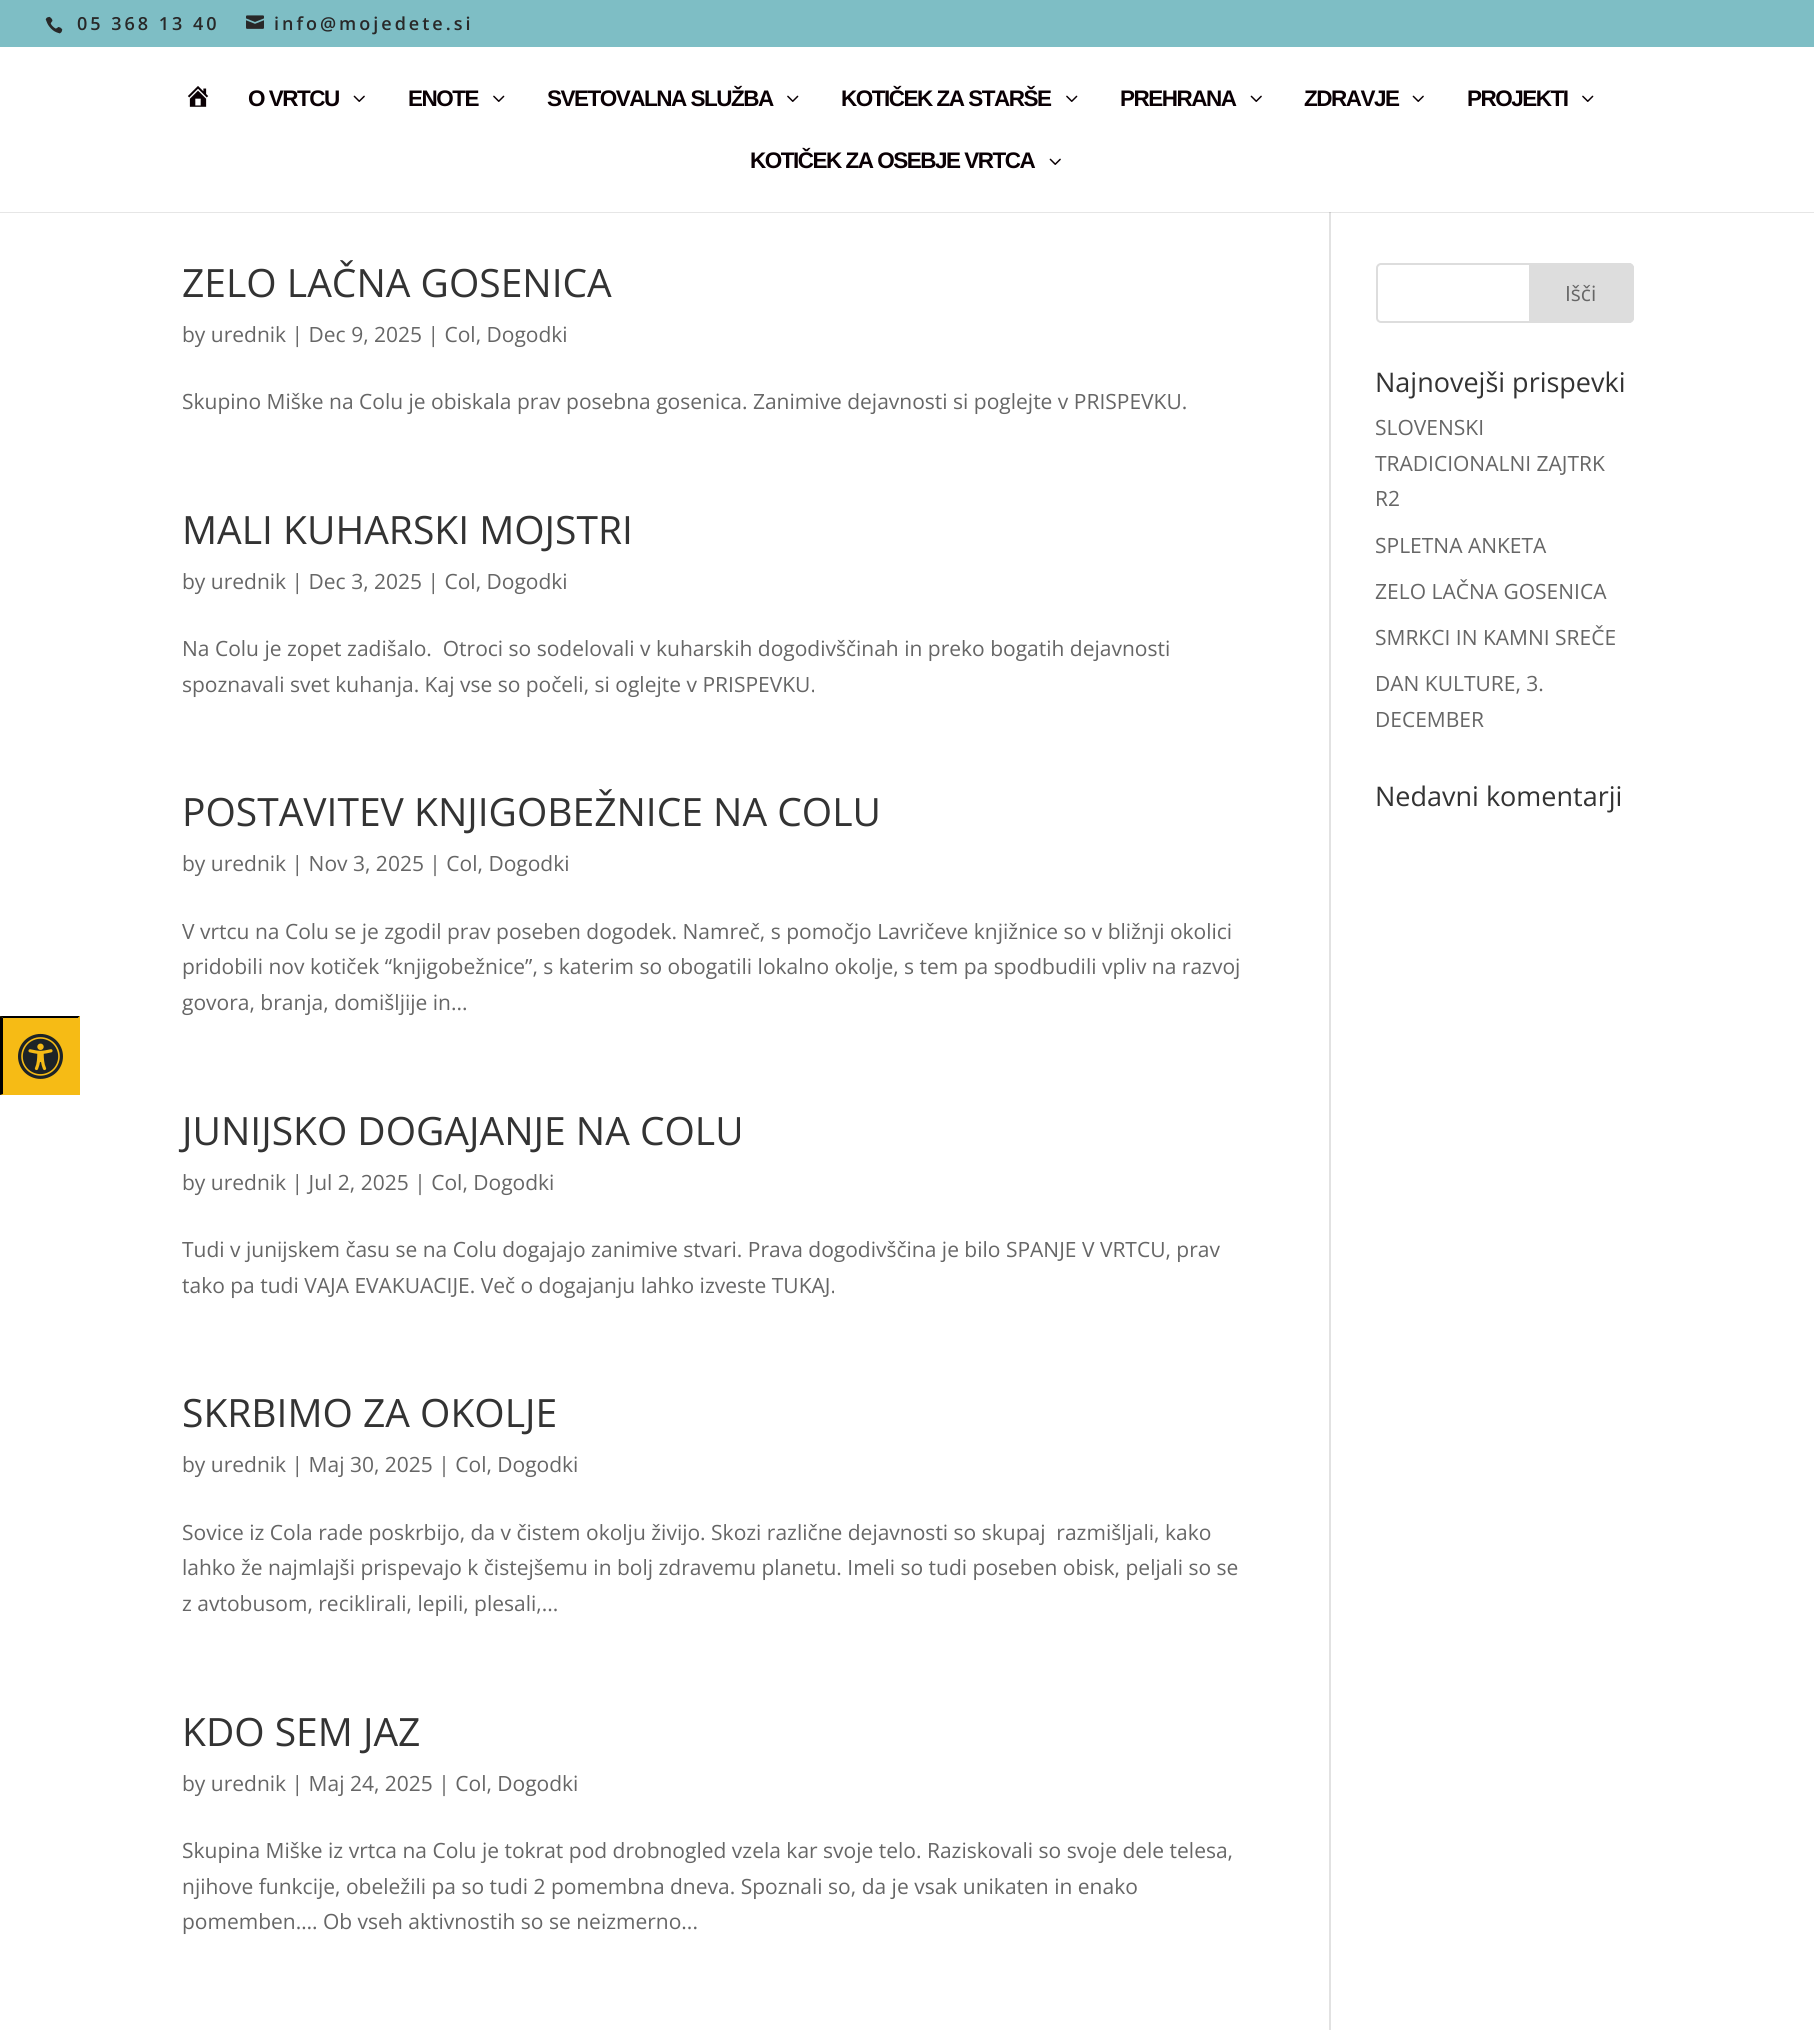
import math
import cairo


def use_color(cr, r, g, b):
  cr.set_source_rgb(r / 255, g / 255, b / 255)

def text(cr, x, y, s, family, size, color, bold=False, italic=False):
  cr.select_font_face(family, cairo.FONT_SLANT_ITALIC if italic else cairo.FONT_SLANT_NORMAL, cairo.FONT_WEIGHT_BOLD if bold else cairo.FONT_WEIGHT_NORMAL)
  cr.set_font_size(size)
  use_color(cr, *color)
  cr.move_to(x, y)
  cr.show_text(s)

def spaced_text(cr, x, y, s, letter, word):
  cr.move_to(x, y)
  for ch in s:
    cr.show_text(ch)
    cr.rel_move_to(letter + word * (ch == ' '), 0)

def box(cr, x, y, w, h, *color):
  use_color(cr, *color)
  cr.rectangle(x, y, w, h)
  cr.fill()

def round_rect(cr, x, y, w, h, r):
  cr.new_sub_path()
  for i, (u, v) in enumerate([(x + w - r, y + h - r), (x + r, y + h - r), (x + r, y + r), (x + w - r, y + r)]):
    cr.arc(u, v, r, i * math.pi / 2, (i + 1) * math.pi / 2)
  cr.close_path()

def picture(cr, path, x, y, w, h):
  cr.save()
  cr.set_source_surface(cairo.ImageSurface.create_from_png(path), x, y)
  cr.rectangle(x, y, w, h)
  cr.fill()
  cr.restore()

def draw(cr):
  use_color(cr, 255, 255, 255)
  cr.paint()
  box(cr, 0, 212, 1814, 1, 230, 230, 230)
  box(cr, 0, 1016, 80, 79, 246, 187, 21)
  use_color(cr, 0, 0, 0)
  cr.new_path()
  cr.move_to(0, 1016)
  cr.line_to(80, 1016)
  cr.line_to(78, 1018)
  cr.line_to(3, 1018)
  cr.close_path()
  cr.fill()
  use_color(cr, 246, 187, 21)
  cr.new_path()
  cr.move_to(80, 1016)
  cr.line_to(80, 1095)
  cr.line_to(78, 1094)
  cr.line_to(78, 1018)
  cr.close_path()
  cr.fill()
  use_color(cr, 0, 0, 0)
  cr.new_path()
  cr.move_to(0, 1095)
  cr.line_to(0, 1016)
  cr.line_to(3, 1018)
  cr.line_to(3, 1094)
  cr.close_path()
  cr.fill()
  picture(cr, "img_01.png", 18, 1033, 45, 46)
  box(cr, 0, 0, 1814, 47, 126, 190, 197)
  picture(cr, "img_02.png", 45, 16, 18, 18)
  picture(cr, "img_03.png", 246, 15, 18, 14)
  picture(cr, "img_04.png", 187, 86, 22, 21)
  picture(cr, "img_05.png", 353, 95, 12, 7)
  picture(cr, "img_06.png", 493, 95, 12, 7)
  picture(cr, "img_06.png", 787, 95, 12, 7)
  picture(cr, "img_06.png", 1066, 95, 12, 7)
  picture(cr, "img_05.png", 1250, 95, 12, 7)
  picture(cr, "img_05.png", 1412, 95, 12, 7)
  picture(cr, "img_06.png", 1582, 95, 12, 7)
  picture(cr, "img_05.png", 1049, 158, 12, 7)
  box(cr, 1329, 213, 2, 1817, 226, 226, 226)
  box(cr, 1329, 212, 2, 1, 203, 203, 203)
  round_rect(cr, 1377, 264, 256, 58, 4)
  use_color(cr, 221, 221, 221)
  cr.stroke()
  cr.new_path()
  cr.move_to(1530, 264)
  cr.line_to(1629, 264)
  cr.curve_to(1631, 264, 1633, 266, 1633, 268)
  cr.line_to(1633, 318)
  cr.curve_to(1633, 320, 1631, 322, 1629, 322)
  cr.line_to(1530, 322)
  cr.close_path()
  cr.fill_preserve()
  cr.stroke()
  cr.select_font_face("Open Sans SemiBold")
  cr.set_font_size(18)
  use_color(cr, 40, 40, 40)
  spaced_text(cr, 77, 30, "05 368 13 40", 3, 0)
  spaced_text(cr, 274, 30, "info@mojedete.si", 3, 0)
  cr.select_font_face("Liberation Sans", cairo.FONT_SLANT_NORMAL, cairo.FONT_WEIGHT_BOLD)
  cr.set_font_size(22.5)
  use_color(cr, 10, 0, 4)
  spaced_text(cr, 248, 106, "O VRTCU", -1.5, 0)
  spaced_text(cr, 408, 106, "ENOTE", -1.5, 0)
  spaced_text(cr, 547, 106, "SVETOVALNA SLUŽBA", -1.5, 0)
  spaced_text(cr, 841, 106, "KOTIČEK ZA STARŠE", -1.5, 0)
  spaced_text(cr, 1120, 106, "PREHRANA", -1.5, 0)
  spaced_text(cr, 1304, 106, "ZDRAVJE", -1.5, 0)
  spaced_text(cr, 1467, 106, "PROJEKTI", -1.5, 0)
  spaced_text(cr, 750, 168, "KOTIČEK ZA OSEBJE VRTCA", -1.5, 0)
  text(cr, 182, 297, "ZELO LAČNA GOSENICA", "Open Sans", 39, (51, 51, 51))
  text(cr, 182, 342, "by urednik | Dec 9, 2025 | Col, Dogodki", "Open Sans", 21, (102, 102, 102))
  text(cr, 182, 409, "Skupino Miške na Colu je obiskala prav posebna gosenica. Zanimive dejavnosti si poglejte v PRISPEVKU.", "Open Sans", 21, (102, 102, 102))
  text(cr, 182, 544, "MALI KUHARSKI MOJSTRI", "Open Sans", 39, (51, 51, 51))
  text(cr, 182, 589, "by urednik | Dec 3, 2025 | Col, Dogodki", "Open Sans", 21, (102, 102, 102))
  text(cr, 182, 656, "Na Colu je zopet zadišalo.  Otroci so sodelovali v kuharskih dogodivščinah in preko bogatih dejavnosti", "Open Sans", 21, (102, 102, 102))
  text(cr, 182, 692, "spoznavali svet kuhanja. Kaj vse so počeli, si oglejte v PRISPEVKU.", "Open Sans", 21, (102, 102, 102))
  text(cr, 182, 826, "POSTAVITEV KNJIGOBEŽNICE NA COLU", "Open Sans", 39, (51, 51, 51))
  text(cr, 182, 871, "by urednik | Nov 3, 2025 | Col, Dogodki", "Open Sans", 21, (102, 102, 102))
  text(cr, 182, 939, "V vrtcu na Colu se je zgodil prav poseben dogodek. Namreč, s pomočjo Lavričeve knjižnice so v bližnji okolici", "Open Sans", 21, (102, 102, 102))
  text(cr, 182, 974, "pridobili nov kotiček “knjigobežnice”, s katerim so obogatili lokalno okolje, s tem pa spodbudili vpliv na razvoj", "Open Sans", 21, (102, 102, 102))
  text(cr, 182, 1010, "govora, branja, domišljije in...", "Open Sans", 21, (102, 102, 102))
  text(cr, 182, 1145, "JUNIJSKO DOGAJANJE NA COLU", "Open Sans", 39, (51, 51, 51))
  text(cr, 182, 1190, "by urednik | Jul 2, 2025 | Col, Dogodki", "Open Sans", 21, (102, 102, 102))
  text(cr, 182, 1257, "Tudi v junijskem času se na Colu dogajajo zanimive stvari. Prava dogodivščina je bilo SPANJE V VRTCU, prav", "Open Sans", 21, (102, 102, 102))
  text(cr, 182, 1293, "tako pa tudi VAJA EVAKUACIJE. Več o dogajanju lahko izveste TUKAJ.", "Open Sans", 21, (102, 102, 102))
  text(cr, 182, 1427, "SKRBIMO ZA OKOLJE", "Open Sans", 39, (51, 51, 51))
  text(cr, 182, 1472, "by urednik | Maj 30, 2025 | Col, Dogodki", "Open Sans", 21, (102, 102, 102))
  text(cr, 182, 1540, "Sovice iz Cola rade poskrbijo, da v čistem okolju živijo. Skozi različne dejavnosti so skupaj  razmišljali, kako", "Open Sans", 21, (102, 102, 102))
  text(cr, 182, 1575, "lahko že najmlajši prispevajo k čistejšemu in bolj zdravemu planetu. Imeli so tudi poseben obisk, peljali so se", "Open Sans", 21, (102, 102, 102))
  text(cr, 182, 1611, "z avtobusom, reciklirali, lepili, plesali,...", "Open Sans", 21, (102, 102, 102))
  text(cr, 182, 1746, "KDO SEM JAZ", "Open Sans", 39, (51, 51, 51))
  text(cr, 182, 1791, "by urednik | Maj 24, 2025 | Col, Dogodki", "Open Sans", 21, (102, 102, 102))
  text(cr, 182, 1858, "Skupina Miške iz vrtca na Colu je tokrat pod drobnogled vzela kar svoje telo. Raziskovali so svoje dele telesa,", "Open Sans", 21, (102, 102, 102))
  text(cr, 182, 1894, "njihove funkcije, obeležili pa so tudi 2 pomembna dneva. Spoznali so, da je vsak unikaten in enako", "Open Sans", 21, (102, 102, 102))
  text(cr, 182, 1929, "pomemben…. Ob vseh aktivnostih so se neizmerno...", "Open Sans", 21, (102, 102, 102))
  text(cr, 1565, 301, "Išči", "Open Sans", 21, (102, 102, 102))
  text(cr, 1375, 392, "Najnovejši prispevki", "Open Sans", 27, (51, 51, 51))
  text(cr, 1375, 435, "SLOVENSKI", "Open Sans", 21, (102, 102, 102))
  text(cr, 1375, 471, "TRADICIONALNI ZAJTRK", "Open Sans", 21, (102, 102, 102))
  text(cr, 1375, 506, "R2", "Open Sans", 21, (102, 102, 102))
  text(cr, 1375, 553, "SPLETNA ANKETA", "Open Sans", 21, (102, 102, 102))
  text(cr, 1375, 599, "ZELO LAČNA GOSENICA", "Open Sans", 21, (102, 102, 102))
  text(cr, 1375, 645, "SMRKCI IN KAMNI SREČE", "Open Sans", 21, (102, 102, 102))
  text(cr, 1375, 691, "DAN KULTURE, 3.", "Open Sans", 21, (102, 102, 102))
  text(cr, 1375, 727, "DECEMBER", "Open Sans", 21, (102, 102, 102))
  text(cr, 1375, 806, "Nedavni komentarji", "Open Sans", 27, (51, 51, 51))


surface = cairo.ImageSurface(cairo.FORMAT_RGB24, 1814, 2030)
cr = cairo.Context(surface)
options = cairo.FontOptions()
options.set_hint_metrics(cairo.HINT_METRICS_OFF)
options.set_hint_style(cairo.HINT_STYLE_NONE)
cr.set_font_options(options)
cr.set_miter_limit(4)
draw(cr)
surface.write_to_png("out.png")
